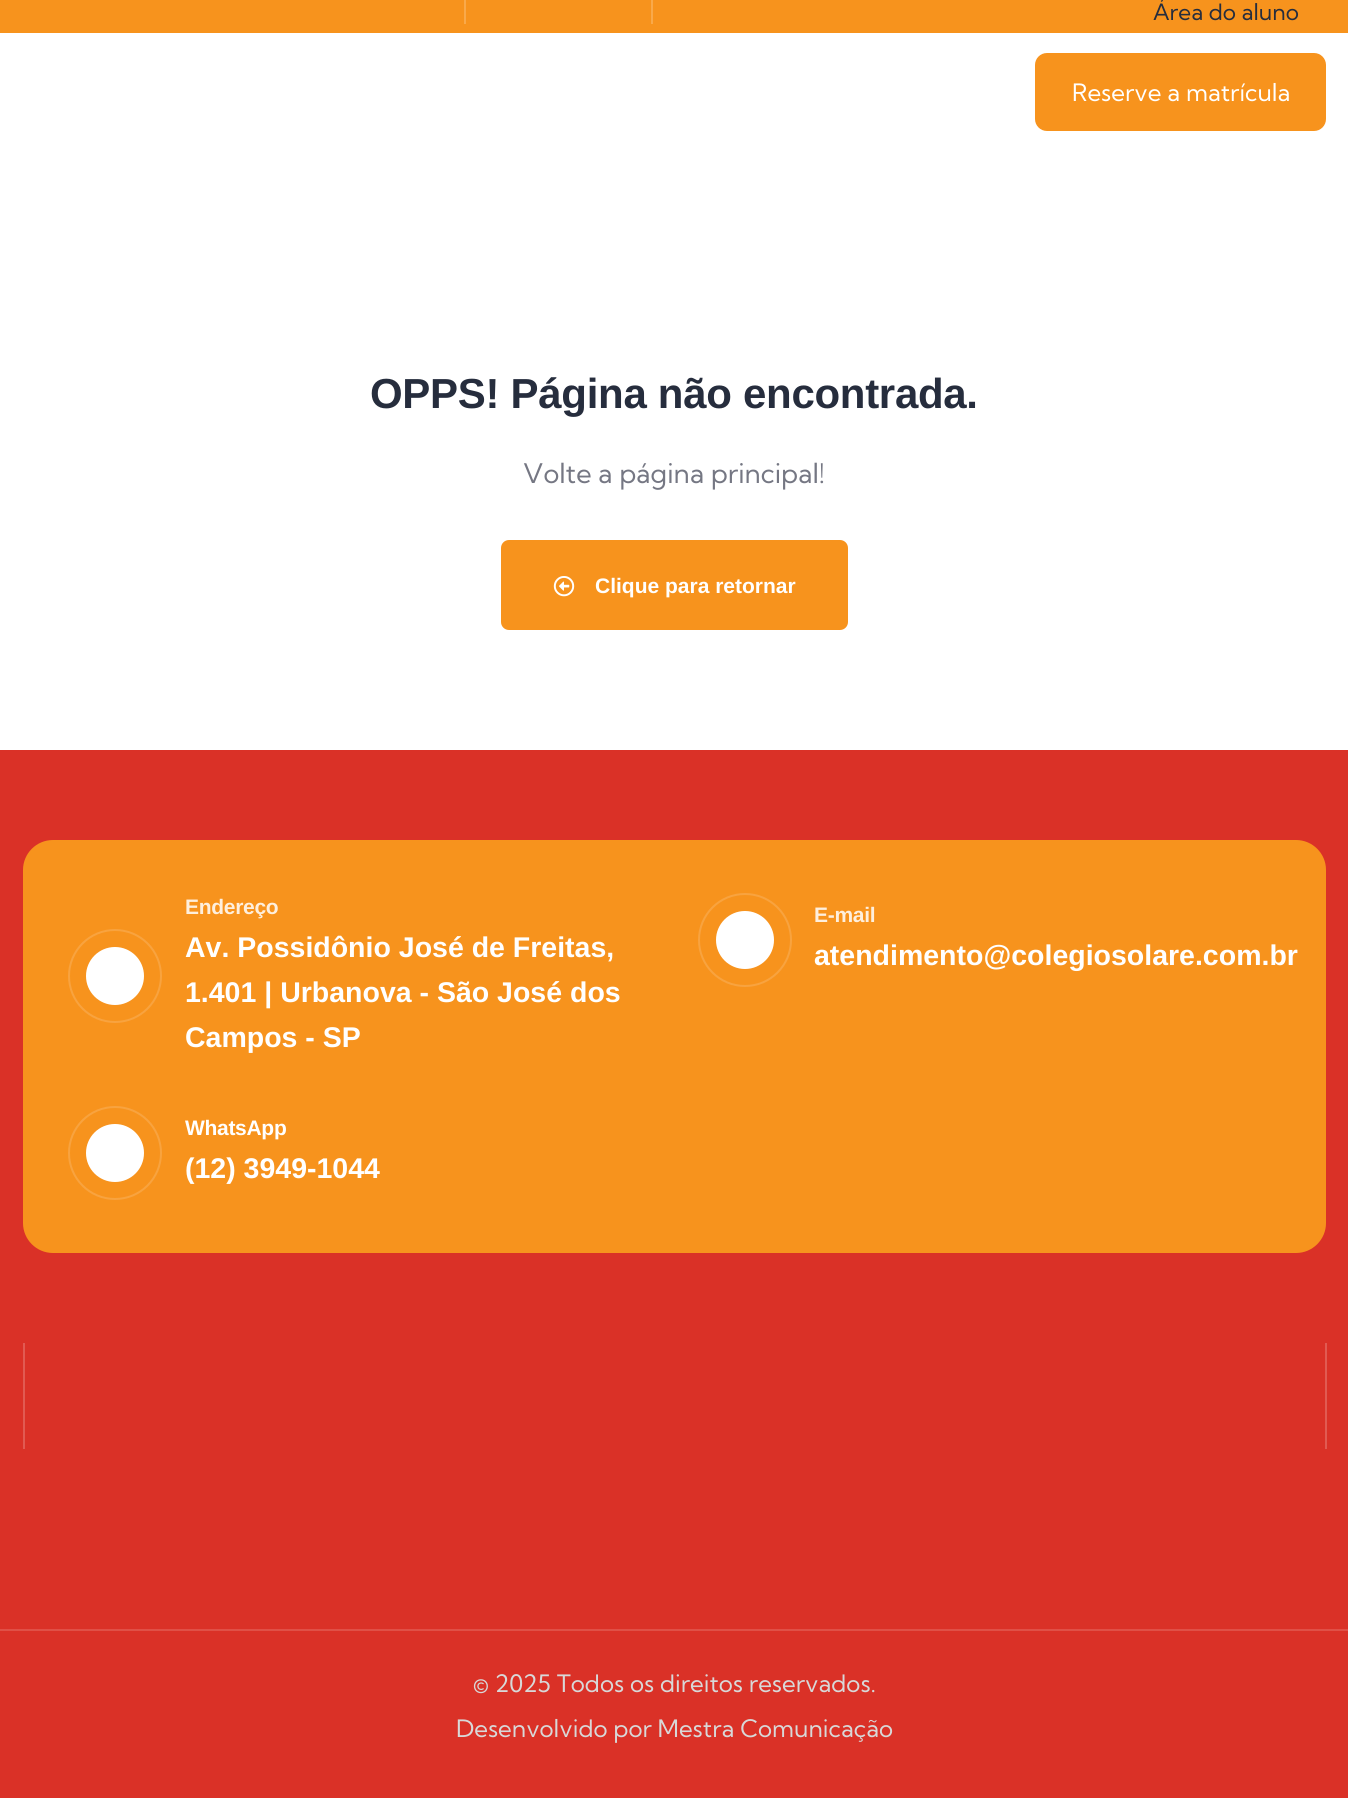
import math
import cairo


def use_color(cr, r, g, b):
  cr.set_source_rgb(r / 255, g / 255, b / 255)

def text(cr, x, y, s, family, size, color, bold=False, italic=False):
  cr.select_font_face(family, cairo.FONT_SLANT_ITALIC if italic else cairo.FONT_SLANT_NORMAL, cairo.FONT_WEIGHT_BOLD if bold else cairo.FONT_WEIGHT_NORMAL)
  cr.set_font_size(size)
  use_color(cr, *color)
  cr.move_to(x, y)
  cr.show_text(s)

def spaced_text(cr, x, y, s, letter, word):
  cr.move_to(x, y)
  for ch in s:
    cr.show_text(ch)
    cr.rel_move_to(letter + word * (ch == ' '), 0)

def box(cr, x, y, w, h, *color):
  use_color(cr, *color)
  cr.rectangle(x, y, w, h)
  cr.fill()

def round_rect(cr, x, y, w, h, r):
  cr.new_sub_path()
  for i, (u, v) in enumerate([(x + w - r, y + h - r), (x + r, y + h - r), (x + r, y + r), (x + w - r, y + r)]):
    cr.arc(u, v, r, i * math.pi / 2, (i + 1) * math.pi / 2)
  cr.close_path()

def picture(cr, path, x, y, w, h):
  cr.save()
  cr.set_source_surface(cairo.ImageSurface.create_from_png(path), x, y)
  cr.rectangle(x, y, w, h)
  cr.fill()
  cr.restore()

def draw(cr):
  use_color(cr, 255, 255, 255)
  cr.paint()
  box(cr, 0, 0, 1348, 33, 247, 147, 29)
  box(cr, 651, 0, 2, 24, 249, 169, 74)
  box(cr, 464, 0, 2, 24, 249, 169, 74)
  use_color(cr, 247, 147, 29)
  round_rect(cr, 1035, 53, 291, 78, 12)
  cr.fill()
  round_rect(cr, 501, 540, 347, 90, 8)
  cr.fill()
  picture(cr, "img_01.png", 553, 576, 22, 21)
  box(cr, 0, 750, 1348, 1048, 218, 49, 39)
  use_color(cr, 247, 147, 29)
  round_rect(cr, 23, 840, 1303, 413, 30)
  cr.fill()
  cr.arc(115, 976, 46, 0, 2 * math.pi)
  use_color(cr, 248, 163, 63)
  cr.stroke()
  use_color(cr, 255, 255, 255)
  cr.arc(115, 976, 29, 0, 2 * math.pi)
  cr.fill()
  cr.arc(745, 940, 46, 0, 2 * math.pi)
  use_color(cr, 248, 163, 63)
  cr.stroke()
  use_color(cr, 255, 255, 255)
  cr.arc(745, 940, 29, 0, 2 * math.pi)
  cr.fill()
  cr.arc(115, 1153, 46, 0, 2 * math.pi)
  use_color(cr, 248, 163, 63)
  cr.stroke()
  use_color(cr, 255, 255, 255)
  cr.arc(115, 1153, 29, 0, 2 * math.pi)
  cr.fill()
  box(cr, 1325, 1343, 2, 106, 225, 90, 82)
  box(cr, 23, 1343, 2, 106, 225, 90, 82)
  box(cr, 0, 1629, 1348, 2, 224, 80, 71)
  text(cr, 1153, 20, "Área do aluno", "Kumbh Sans", 22.5, (38, 45, 61))
  text(cr, 1072, 101, "Reserve a matrícula", "Kumbh Sans", 24, (255, 255, 255))
  cr.select_font_face("Liberation Sans", cairo.FONT_SLANT_NORMAL, cairo.FONT_WEIGHT_BOLD)
  cr.set_font_size(42)
  use_color(cr, 38, 45, 61)
  spaced_text(cr, 370, 408, "OPPS! Página não encontrada.", -0.3, 0)
  text(cr, 523, 483, "Volte a página principal!", "Kumbh Sans", 27, (117, 119, 131))
  text(cr, 595, 593, "Clique para retornar", "Liberation Sans", 21, (255, 255, 255), bold=True)
  use_color(cr, 254, 239, 221)
  spaced_text(cr, 185, 914, "Endereço", -0.3, 0)
  text(cr, 185, 957, "Av. Possidônio José de Freitas,", "Liberation Sans", 28.5, (255, 255, 255), bold=True)
  text(cr, 185, 1002, "1.401 | Urbanova - São José dos", "Liberation Sans", 28.5, (255, 255, 255), bold=True)
  text(cr, 185, 1047, "Campos - SP", "Liberation Sans", 28.5, (255, 255, 255), bold=True)
  cr.set_font_size(21)
  use_color(cr, 254, 239, 221)
  spaced_text(cr, 814, 922, "E-mail", -0.3, 0)
  text(cr, 814, 965, "atendimento@colegiosolare.com.br", "Liberation Sans", 28.5, (255, 255, 255), bold=True)
  cr.set_font_size(21)
  spaced_text(cr, 185, 1135, "WhatsApp", -0.3, 0)
  text(cr, 185, 1178, "(12) 3949-1044", "Liberation Sans", 28.5, (255, 255, 255), bold=True)
  text(cr, 473, 1692, "© 2025 Todos os direitos reservados.", "Kumbh Sans", 24, (216, 216, 216))
  text(cr, 456, 1737, "Desenvolvido por Mestra Comunicação", "Kumbh Sans", 24, (216, 216, 216))


surface = cairo.ImageSurface(cairo.FORMAT_RGB24, 1348, 1798)
cr = cairo.Context(surface)
options = cairo.FontOptions()
options.set_hint_metrics(cairo.HINT_METRICS_OFF)
options.set_hint_style(cairo.HINT_STYLE_NONE)
cr.set_font_options(options)
cr.set_miter_limit(4)
draw(cr)
surface.write_to_png("out.png")
